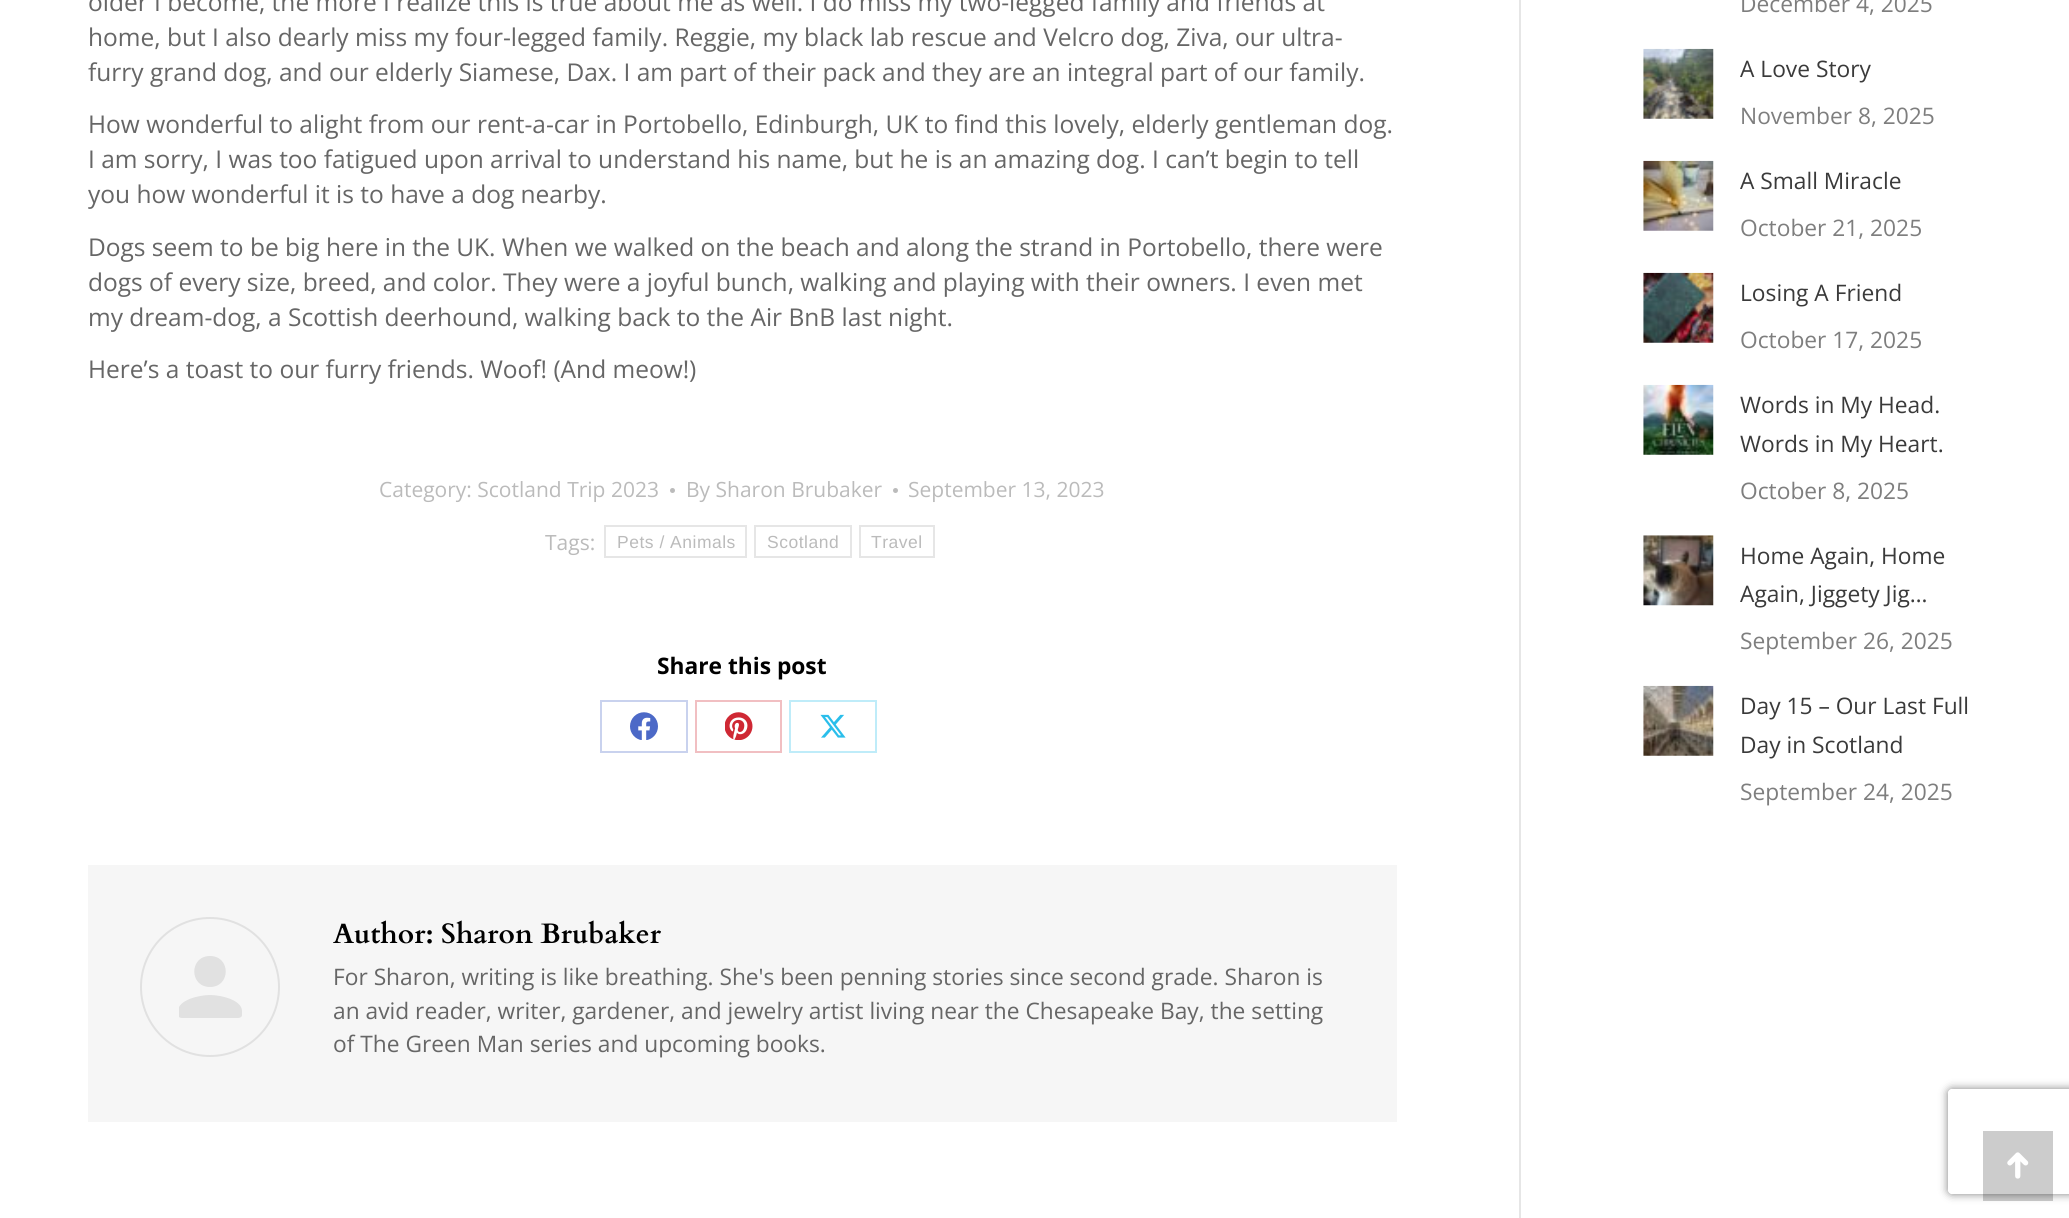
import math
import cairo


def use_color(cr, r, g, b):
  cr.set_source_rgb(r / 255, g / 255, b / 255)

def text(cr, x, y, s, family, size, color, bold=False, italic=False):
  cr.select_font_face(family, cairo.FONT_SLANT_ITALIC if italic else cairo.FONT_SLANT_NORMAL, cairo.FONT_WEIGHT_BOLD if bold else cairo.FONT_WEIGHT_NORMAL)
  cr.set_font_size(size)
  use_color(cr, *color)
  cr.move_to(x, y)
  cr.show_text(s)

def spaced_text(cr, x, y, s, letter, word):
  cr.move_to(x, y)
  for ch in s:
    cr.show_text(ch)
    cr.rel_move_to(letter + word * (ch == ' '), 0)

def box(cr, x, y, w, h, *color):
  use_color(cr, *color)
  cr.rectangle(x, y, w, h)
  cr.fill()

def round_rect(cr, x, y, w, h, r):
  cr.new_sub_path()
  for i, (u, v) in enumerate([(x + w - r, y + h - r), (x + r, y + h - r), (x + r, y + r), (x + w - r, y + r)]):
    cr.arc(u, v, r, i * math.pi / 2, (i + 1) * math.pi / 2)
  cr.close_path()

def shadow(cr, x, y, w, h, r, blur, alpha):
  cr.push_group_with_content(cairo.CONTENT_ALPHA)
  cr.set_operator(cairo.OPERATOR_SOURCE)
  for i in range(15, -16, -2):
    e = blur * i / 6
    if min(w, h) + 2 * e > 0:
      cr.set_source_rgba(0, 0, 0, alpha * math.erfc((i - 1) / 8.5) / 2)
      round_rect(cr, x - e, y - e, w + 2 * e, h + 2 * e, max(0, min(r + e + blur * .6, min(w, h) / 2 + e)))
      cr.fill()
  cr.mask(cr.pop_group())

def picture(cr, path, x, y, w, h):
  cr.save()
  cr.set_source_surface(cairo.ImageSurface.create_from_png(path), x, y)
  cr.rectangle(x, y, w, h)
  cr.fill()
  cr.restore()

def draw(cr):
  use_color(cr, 255, 255, 255)
  cr.paint()
  use_color(cr, 187, 187, 187)
  cr.arc(672.5, 490.5, 2.5, 0, 2 * math.pi)
  cr.fill()
  cr.arc(895.5, 490.5, 2.5, 0, 2 * math.pi)
  cr.fill()
  cr.rectangle(605, 526, 141, 31)
  use_color(cr, 230, 230, 230)
  cr.stroke()
  cr.rectangle(755, 526, 96, 31)
  cr.stroke()
  cr.rectangle(860, 526, 74, 31)
  cr.stroke()
  cr.rectangle(601, 701, 86, 51)
  use_color(cr, 201, 210, 238)
  cr.stroke()
  picture(cr, "img_01.png", 630, 712, 28, 28)
  cr.rectangle(696, 701, 85, 51)
  use_color(cr, 241, 191, 194)
  cr.stroke()
  picture(cr, "img_02.png", 725, 712, 28, 28)
  cr.rectangle(790, 701, 86, 51)
  use_color(cr, 191, 236, 249)
  cr.stroke()
  picture(cr, "img_03.png", 820, 714, 26, 24)
  box(cr, 88, 865, 1309, 257, 246, 246, 246)
  cr.arc(210, 987, 69, 0, 2 * math.pi)
  use_color(cr, 225, 225, 225)
  cr.stroke()
  cr.save()
  cr.rectangle(179, 956, 63, 63)
  cr.clip()
  cr.new_path()
  cr.move_to(210, 987)
  cr.curve_to(231, 987, 231, 956, 210, 956)
  cr.curve_to(189, 956, 189, 987, 210, 987)
  cr.close_path()
  cr.move_to(210, 995)
  cr.curve_to(199, 995, 178, 1000, 178, 1011)
  cr.line_to(178, 1015)
  cr.curve_to(178, 1017, 180, 1018, 182, 1018)
  cr.line_to(238, 1018)
  cr.curve_to(240, 1018, 242, 1017, 242, 1015)
  cr.line_to(242, 1011)
  cr.curve_to(242, 1000, 221, 995, 210, 995)
  cr.close_path()
  cr.fill()
  cr.restore()
  box(cr, 1519, 0, 2, 1218, 230, 230, 230)
  picture(cr, "img_04.png", 1643, 48, 71, 71)
  picture(cr, "img_05.png", 1643, 160, 71, 71)
  picture(cr, "img_06.png", 1643, 272, 71, 71)
  picture(cr, "img_07.png", 1643, 384, 71, 71)
  picture(cr, "img_08.png", 1643, 535, 71, 71)
  picture(cr, "img_09.png", 1643, 685, 71, 71)
  cr.save()
  cr.set_fill_rule(cairo.FILL_RULE_EVEN_ODD)
  cr.new_path()
  cr.move_to(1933, 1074)
  cr.line_to(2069, 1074)
  cr.line_to(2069, 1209)
  cr.line_to(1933, 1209)
  cr.close_path()
  cr.move_to(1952, 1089)
  cr.line_to(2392, 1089)
  cr.curve_to(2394, 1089, 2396, 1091, 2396, 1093)
  cr.line_to(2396, 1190)
  cr.curve_to(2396, 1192, 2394, 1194, 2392, 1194)
  cr.line_to(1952, 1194)
  cr.curve_to(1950, 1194, 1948, 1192, 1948, 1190)
  cr.line_to(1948, 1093)
  cr.curve_to(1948, 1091, 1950, 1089, 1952, 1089)
  cr.close_path()
  cr.clip()
  use_color(cr, 128, 128, 128)
  shadow(cr, 1948, 1089, 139, 105, 4, 4.5, 1)
  cr.restore()
  cr.set_source_rgba(0, 0, 0, 0.2)
  cr.rectangle(1983, 1131, 70, 70)
  cr.fill()
  picture(cr, "img_10.png", 2007, 1152, 22, 27)
  text(cr, 88, 11, "older I become, the more I realize this is true about me as well. I do miss my two-legged family and friends at", "Open Sans", 24.5, (102, 102, 102))
  text(cr, 88, 46, "home, but I also dearly miss my four-legged family. Reggie, my black lab rescue and Velcro dog, Ziva, our ultra-", "Open Sans", 24.5, (102, 102, 102))
  text(cr, 88, 81, "furry grand dog, and our elderly Siamese, Dax. I am part of their pack and they are an integral part of our family.", "Open Sans", 24.5, (102, 102, 102))
  text(cr, 88, 133, "How wonderful to alight from our rent-a-car in Portobello, Edinburgh, UK to find this lovely, elderly gentleman dog.", "Open Sans", 24.5, (102, 102, 102))
  text(cr, 88, 168, "I am sorry, I was too fatigued upon arrival to understand his name, but he is an amazing dog. I can’t begin to tell", "Open Sans", 24.5, (102, 102, 102))
  text(cr, 88, 203, "you how wonderful it is to have a dog nearby.", "Open Sans", 24.5, (102, 102, 102))
  text(cr, 88, 256, "Dogs seem to be big here in the UK. When we walked on the beach and along the strand in Portobello, there were", "Open Sans", 24.5, (102, 102, 102))
  text(cr, 88, 291, "dogs of every size, breed, and color. They were a joyful bunch, walking and playing with their owners. I even met", "Open Sans", 24.5, (102, 102, 102))
  text(cr, 88, 326, "my dream-dog, a Scottish deerhound, walking back to the Air BnB last night.", "Open Sans", 24.5, (102, 102, 102))
  text(cr, 88, 378, "Here’s a toast to our furry friends. Woof! (And meow!)", "Open Sans", 24.5, (102, 102, 102))
  text(cr, 379, 497, "Category: Scotland Trip 2023", "Open Sans", 21, (187, 187, 187))
  text(cr, 686, 497, "By Sharon Brubaker", "Open Sans", 21, (187, 187, 187))
  text(cr, 908, 497, "September 13, 2023", "Open Sans", 21, (187, 187, 187))
  text(cr, 545, 550, "Tags:", "Open Sans", 21, (187, 187, 187))
  cr.select_font_face("Liberation Sans")
  cr.set_font_size(17.5)
  spaced_text(cr, 617, 548, "Pets / Animals", 0.5, 0)
  spaced_text(cr, 767, 548, "Scotland", 0.5, 0)
  spaced_text(cr, 871, 548, "Travel", 0.5, 0)
  text(cr, 657, 674, "Share this post", "Open Sans", 22.75, (0, 0, 0), bold=True)
  text(cr, 333, 943, "Author: Sharon Brubaker", "Cardo", 28, (0, 0, 0), bold=True)
  text(cr, 333, 985, "For Sharon, writing is like breathing. She's been penning stories since second grade. Sharon is", "Open Sans", 22.75, (102, 102, 102))
  text(cr, 333, 1019, "an avid reader, writer, gardener, and jewelry artist living near the Chesapeake Bay, the setting", "Open Sans", 22.75, (102, 102, 102))
  text(cr, 333, 1052, "of The Green Man series and upcoming books.", "Open Sans", 22.75, (102, 102, 102))
  text(cr, 1740, 12, "December 4, 2025", "Open Sans", 22.75, (126, 126, 126))
  text(cr, 1740, 77, "A Love Story", "Open Sans", 22.75, (58, 58, 58))
  text(cr, 1740, 124, "November 8, 2025", "Open Sans", 22.75, (126, 126, 126))
  text(cr, 1740, 189, "A Small Miracle", "Open Sans", 22.75, (58, 58, 58))
  text(cr, 1740, 236, "October 21, 2025", "Open Sans", 22.75, (126, 126, 126))
  text(cr, 1740, 301, "Losing A Friend", "Open Sans", 22.75, (58, 58, 58))
  text(cr, 1740, 348, "October 17, 2025", "Open Sans", 22.75, (126, 126, 126))
  text(cr, 1740, 413, "Words in My Head.", "Open Sans", 22.75, (58, 58, 58))
  text(cr, 1740, 452, "Words in My Heart.", "Open Sans", 22.75, (58, 58, 58))
  text(cr, 1740, 499, "October 8, 2025", "Open Sans", 22.75, (126, 126, 126))
  text(cr, 1740, 564, "Home Again, Home", "Open Sans", 22.75, (58, 58, 58))
  text(cr, 1740, 602, "Again, Jiggety Jig…", "Open Sans", 22.75, (58, 58, 58))
  text(cr, 1740, 649, "September 26, 2025", "Open Sans", 22.75, (126, 126, 126))
  text(cr, 1740, 714, "Day 15 – Our Last Full", "Open Sans", 22.75, (58, 58, 58))
  text(cr, 1740, 753, "Day in Scotland", "Open Sans", 22.75, (58, 58, 58))
  text(cr, 1740, 800, "September 24, 2025", "Open Sans", 22.75, (126, 126, 126))


surface = cairo.ImageSurface(cairo.FORMAT_RGB24, 2069, 1218)
cr = cairo.Context(surface)
options = cairo.FontOptions()
options.set_hint_metrics(cairo.HINT_METRICS_OFF)
options.set_hint_style(cairo.HINT_STYLE_NONE)
cr.set_font_options(options)
cr.set_miter_limit(4)
draw(cr)
surface.write_to_png("out.png")
